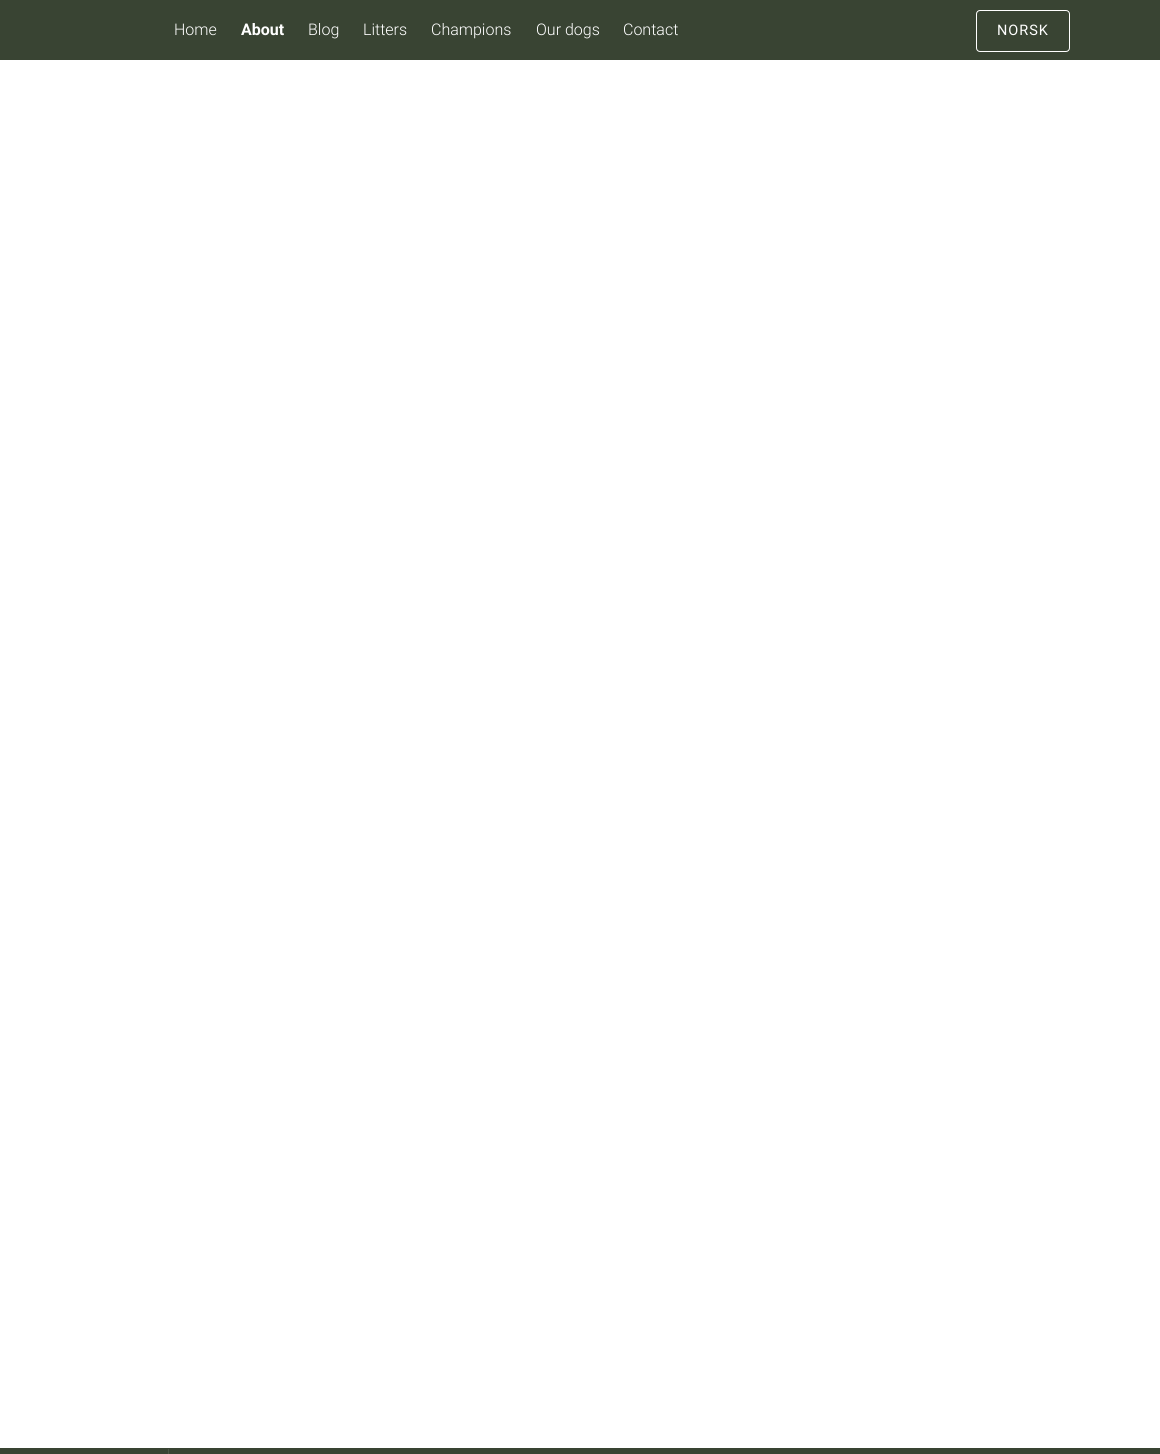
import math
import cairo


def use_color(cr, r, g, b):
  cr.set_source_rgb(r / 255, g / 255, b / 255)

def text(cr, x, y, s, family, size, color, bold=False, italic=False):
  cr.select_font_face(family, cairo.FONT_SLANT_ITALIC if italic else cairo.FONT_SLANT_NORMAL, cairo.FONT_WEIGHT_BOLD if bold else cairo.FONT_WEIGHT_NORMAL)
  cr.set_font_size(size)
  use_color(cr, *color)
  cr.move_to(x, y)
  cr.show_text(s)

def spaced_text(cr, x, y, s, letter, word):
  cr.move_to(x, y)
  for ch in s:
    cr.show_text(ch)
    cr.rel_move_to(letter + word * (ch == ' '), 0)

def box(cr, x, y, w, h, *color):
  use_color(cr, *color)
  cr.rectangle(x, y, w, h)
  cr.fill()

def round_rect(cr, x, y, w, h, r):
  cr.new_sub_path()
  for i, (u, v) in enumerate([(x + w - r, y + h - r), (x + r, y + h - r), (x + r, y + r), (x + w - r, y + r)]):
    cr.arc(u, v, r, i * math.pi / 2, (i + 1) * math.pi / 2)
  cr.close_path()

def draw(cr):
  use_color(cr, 255, 255, 255)
  cr.paint()
  box(cr, 0, 0, 1160, 60, 57, 68, 51)
  round_rect(cr, 976.5, 10.5, 93, 41, 3.5)
  use_color(cr, 255, 255, 255)
  cr.set_line_width(1)
  cr.stroke()
  box(cr, 0, 1448, 1160, 6, 57, 68, 51)
  box(cr, 168, 1449, 1, 5, 77, 87, 71)
  text(cr, 174, 35, "Home", "Roboto Light", 16, (255, 255, 255))
  text(cr, 241, 35, "About", "Roboto", 16, (255, 255, 255), bold=True)
  text(cr, 308, 35, "Blog", "Roboto Light", 16, (255, 255, 255))
  text(cr, 363, 35, "Litters", "Roboto Light", 16, (255, 255, 255))
  text(cr, 431, 35, "Champions", "Roboto Light", 16, (255, 255, 255))
  text(cr, 536, 35, "Our dogs", "Roboto Light", 16, (255, 255, 255))
  text(cr, 623, 35, "Contact", "Roboto Light", 16, (255, 255, 255))
  cr.select_font_face("Roboto")
  cr.set_font_size(14.5)
  spaced_text(cr, 997, 35, "NORSK", 1, 0)


surface = cairo.ImageSurface(cairo.FORMAT_RGB24, 1160, 1454)
cr = cairo.Context(surface)
options = cairo.FontOptions()
options.set_hint_metrics(cairo.HINT_METRICS_OFF)
options.set_hint_style(cairo.HINT_STYLE_NONE)
cr.set_font_options(options)
cr.set_miter_limit(4)
draw(cr)
surface.write_to_png("out.png")
